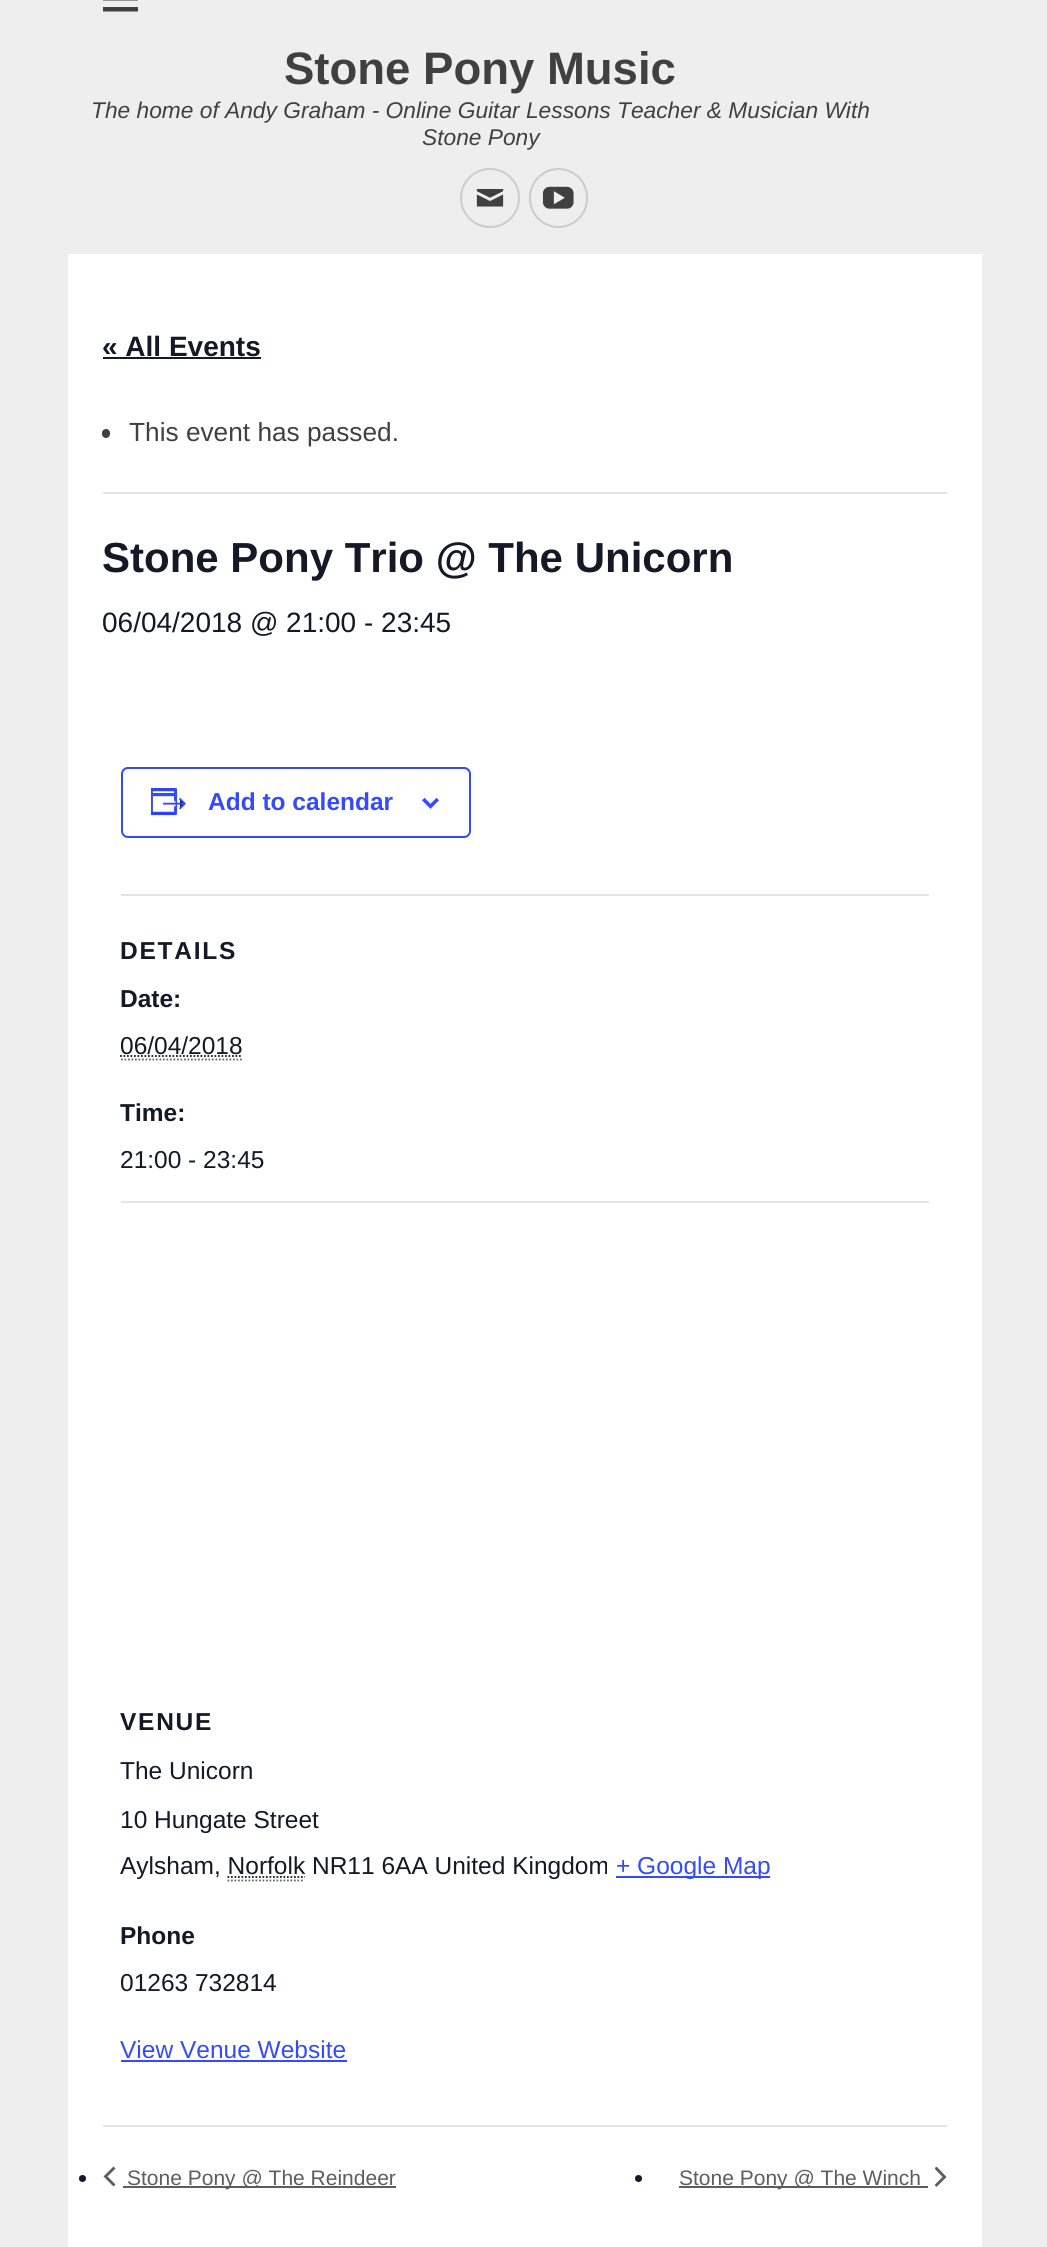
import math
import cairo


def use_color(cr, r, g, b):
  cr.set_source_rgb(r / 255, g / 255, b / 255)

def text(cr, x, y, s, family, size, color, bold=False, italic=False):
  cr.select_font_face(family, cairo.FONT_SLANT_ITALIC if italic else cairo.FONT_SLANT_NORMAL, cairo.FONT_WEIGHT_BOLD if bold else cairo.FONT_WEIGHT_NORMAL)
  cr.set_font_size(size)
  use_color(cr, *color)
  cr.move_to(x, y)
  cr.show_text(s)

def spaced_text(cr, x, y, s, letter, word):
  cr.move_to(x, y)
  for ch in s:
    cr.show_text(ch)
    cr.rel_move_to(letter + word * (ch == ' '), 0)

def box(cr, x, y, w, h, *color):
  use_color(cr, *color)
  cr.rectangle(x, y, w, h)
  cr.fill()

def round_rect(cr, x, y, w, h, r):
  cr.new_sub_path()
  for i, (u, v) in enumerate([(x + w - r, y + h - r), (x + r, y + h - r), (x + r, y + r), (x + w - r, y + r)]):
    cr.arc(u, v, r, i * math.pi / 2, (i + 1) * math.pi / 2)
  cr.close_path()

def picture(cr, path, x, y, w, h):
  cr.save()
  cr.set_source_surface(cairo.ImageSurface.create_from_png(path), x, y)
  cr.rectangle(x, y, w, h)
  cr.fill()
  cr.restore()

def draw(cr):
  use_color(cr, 238, 238, 238)
  cr.paint()
  use_color(cr, 64, 64, 64)
  cr.new_path()
  cr.move_to(103, 11.5)
  cr.line_to(103, 7)
  cr.line_to(138, 7)
  cr.line_to(138, 11.5)
  cr.close_path()
  cr.move_to(103, -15)
  cr.line_to(138, -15)
  cr.line_to(138, -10.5)
  cr.line_to(103, -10.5)
  cr.close_path()
  cr.move_to(103, 0.5)
  cr.line_to(103, -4)
  cr.line_to(138, -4)
  cr.line_to(138, 0.5)
  cr.close_path()
  cr.fill()
  cr.arc(490, 198, 29, 0, 2 * math.pi)
  use_color(cr, 204, 204, 204)
  cr.stroke()
  picture(cr, "img_01.png", 476, 189, 28, 18)
  round_rect(cr, 530, 169, 57, 58, 28.5)
  cr.stroke()
  picture(cr, "img_02.png", 542, 186, 32, 23)
  box(cr, 68, 254, 914, 1993, 255, 255, 255)
  box(cr, 103, 357, 158, 2, 20, 24, 39)
  box(cr, 103, 492, 844, 2, 228, 228, 228)
  use_color(cr, 64, 64, 64)
  round_rect(cr, 102, 429, 8, 9, 4)
  cr.fill()
  round_rect(cr, 122, 768, 348, 69, 6)
  use_color(cr, 51, 74, 255)
  cr.stroke()
  picture(cr, "img_03.png", 151, 788, 35, 28)
  picture(cr, "img_04.png", 422, 798, 17, 11)
  box(cr, 121, 894, 808, 2, 228, 228, 228)
  cr.new_path()
  cr.move_to(121, 1059.5)
  cr.line_to(243, 1059.5)
  use_color(cr, 102, 102, 102)
  cr.set_line_width(1.8)
  cr.set_dash([1.75, 1.75])
  cr.stroke()
  cr.new_path()
  cr.move_to(120, 1056)
  cr.line_to(242.5, 1056)
  use_color(cr, 20, 24, 39)
  cr.stroke()
  box(cr, 121, 1201, 808, 2, 228, 228, 228)
  cr.new_path()
  cr.move_to(227.5, 1877)
  cr.line_to(305, 1877)
  use_color(cr, 20, 24, 39)
  cr.stroke()
  box(cr, 616, 1876, 154, 2, 51, 74, 255)
  box(cr, 121, 2060, 226, 2, 51, 74, 255)
  box(cr, 103, 2125, 844, 2, 228, 228, 228)
  use_color(cr, 20, 24, 39)
  cr.arc(82.5, 2178.5, 3.5, 0, 2 * math.pi)
  cr.fill()
  use_color(cr, 93, 93, 93)
  cr.new_path()
  cr.move_to(115.5, 2184.5)
  cr.line_to(113.5, 2186.5)
  cr.line_to(103.5, 2176.5)
  cr.line_to(113.5, 2166.5)
  cr.line_to(115.5, 2168.5)
  cr.line_to(107.5, 2176.5)
  cr.close_path()
  cr.fill()
  box(cr, 123, 2186, 273, 2, 93, 93, 93)
  use_color(cr, 20, 24, 39)
  cr.arc(638.5, 2178.5, 3.5, 0, 2 * math.pi)
  cr.fill()
  box(cr, 679, 2186, 249, 2, 93, 93, 93)
  cr.save()
  cr.rectangle(935, 2167, 12, 21)
  cr.clip()
  cr.new_path()
  cr.move_to(934.5, 2168.5)
  cr.line_to(936.5, 2166.5)
  cr.line_to(946.5, 2177)
  cr.line_to(936.5, 2187)
  cr.line_to(934.5, 2185)
  cr.line_to(942.5, 2177)
  cr.close_path()
  cr.fill()
  cr.restore()
  text(cr, 284, 84, "Stone Pony Music", "Liberation Sans", 45.5, (64, 64, 64), bold=True)
  text(cr, 91, 118, "The home of Andy Graham - Online Guitar Lessons Teacher & Musician With", "Liberation Sans", 22.75, (64, 64, 64), italic=True)
  text(cr, 422, 145, "Stone Pony", "Liberation Sans", 22.75, (64, 64, 64), italic=True)
  text(cr, 102, 356, "« All Events", "Liberation Sans", 28, (20, 24, 39), bold=True)
  text(cr, 129, 441, "This event has passed.", "Liberation Sans", 26.25, (64, 64, 64))
  text(cr, 102, 572, "Stone Pony Trio @ The Unicorn", "Liberation Sans", 42, (20, 24, 39), bold=True)
  text(cr, 102, 632, "06/04/2018 @ 21:00 - 23:45", "Liberation Sans", 28, (20, 24, 39))
  text(cr, 208, 810, "Add to calendar", "Liberation Sans", 24.5, (51, 74, 255), bold=True)
  use_color(cr, 20, 24, 39)
  spaced_text(cr, 120, 959, "DETAILS", 1.75, 0)
  text(cr, 120, 1007, "Date:", "Liberation Sans", 24.5, (20, 24, 39), bold=True)
  text(cr, 120, 1054, "06/04/2018", "Liberation Sans", 24.5, (20, 24, 39))
  text(cr, 120, 1121, "Time:", "Liberation Sans", 24.5, (20, 24, 39), bold=True)
  text(cr, 120, 1168, "21:00 - 23:45", "Liberation Sans", 24.5, (20, 24, 39))
  cr.select_font_face("Liberation Sans", cairo.FONT_SLANT_NORMAL, cairo.FONT_WEIGHT_BOLD)
  spaced_text(cr, 120, 1730, "VENUE", 1.75, 0)
  text(cr, 120, 1779, "The Unicorn", "Liberation Sans", 24.5, (20, 24, 39))
  text(cr, 120, 1828, "10 Hungate Street", "Liberation Sans", 24.5, (20, 24, 39))
  text(cr, 120, 1874, "Aylsham, Norfolk NR11 6AA United Kingdom", "Liberation Sans", 24.5, (20, 24, 39))
  cr.new_path()
  cr.move_to(227.5, 1880.5)
  cr.line_to(304.5, 1880.5)
  use_color(cr, 102, 102, 102)
  cr.stroke()
  text(cr, 616, 1874, "+ Google Map", "Liberation Sans", 24.5, (51, 74, 255))
  text(cr, 120, 1944, "Phone", "Liberation Sans", 24.5, (20, 24, 39), bold=True)
  text(cr, 120, 1991, "01263 732814", "Liberation Sans", 24.5, (20, 24, 39))
  text(cr, 120, 2058, "View Venue Website", "Liberation Sans", 24.5, (51, 74, 255))
  text(cr, 127, 2185, "Stone Pony @ The Reindeer", "Liberation Sans", 21, (93, 93, 93))
  text(cr, 679, 2185, "Stone Pony @ The Winch", "Liberation Sans", 21, (93, 93, 93))


surface = cairo.ImageSurface(cairo.FORMAT_RGB24, 1047, 2247)
cr = cairo.Context(surface)
options = cairo.FontOptions()
options.set_hint_metrics(cairo.HINT_METRICS_OFF)
options.set_hint_style(cairo.HINT_STYLE_NONE)
cr.set_font_options(options)
cr.set_miter_limit(4)
draw(cr)
surface.write_to_png("out.png")
